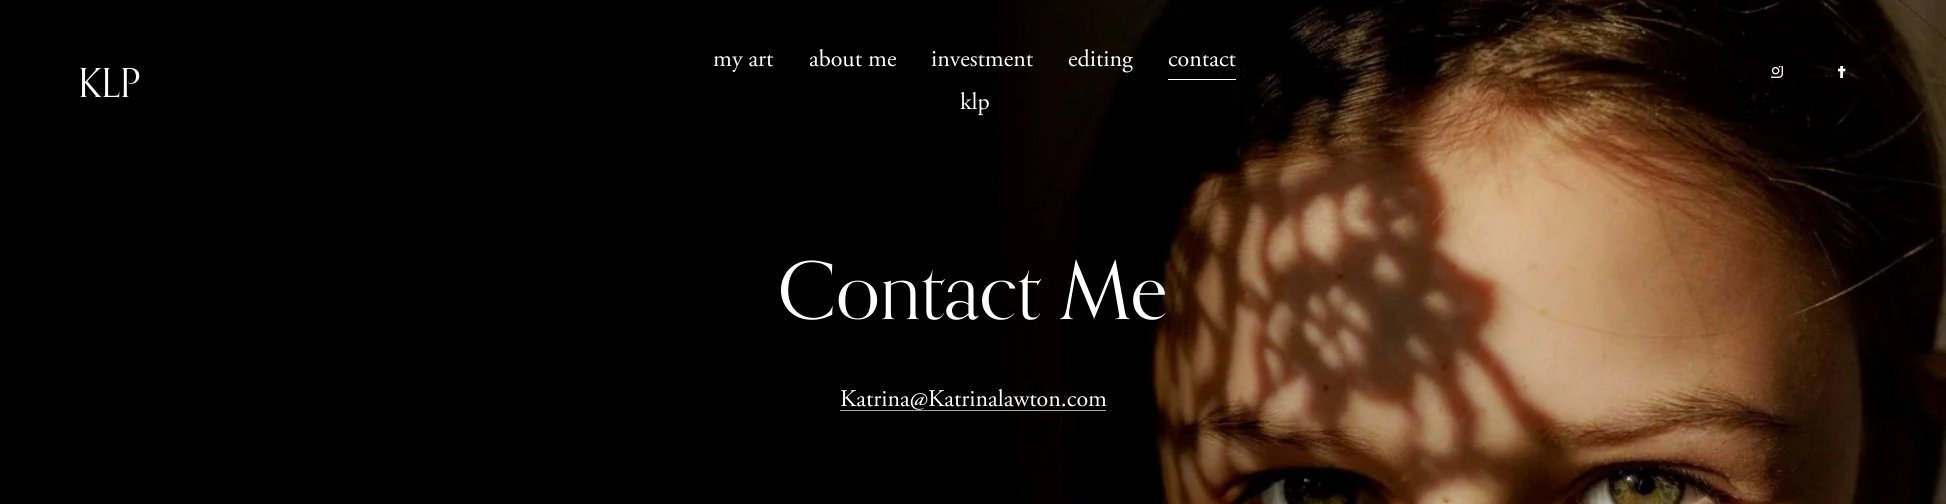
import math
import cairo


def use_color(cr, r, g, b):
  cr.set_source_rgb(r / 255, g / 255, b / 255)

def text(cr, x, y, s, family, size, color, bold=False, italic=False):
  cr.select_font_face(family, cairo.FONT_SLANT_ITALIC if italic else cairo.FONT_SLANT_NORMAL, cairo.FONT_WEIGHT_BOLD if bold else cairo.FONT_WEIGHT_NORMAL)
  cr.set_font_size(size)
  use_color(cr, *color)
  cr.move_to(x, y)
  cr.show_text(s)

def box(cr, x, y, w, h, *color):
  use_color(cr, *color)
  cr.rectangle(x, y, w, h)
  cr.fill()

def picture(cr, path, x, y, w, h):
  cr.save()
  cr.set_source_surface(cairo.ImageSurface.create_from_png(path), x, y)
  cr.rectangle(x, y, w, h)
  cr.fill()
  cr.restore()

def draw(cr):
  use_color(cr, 0, 0, 0)
  cr.paint()
  picture(cr, "img_03.png", 996, 0, 950, 504)
  box(cr, 1168, 79, 68, 1, 255, 255, 255)
  picture(cr, "img_01.png", 1771, 66, 12, 12)
  picture(cr, "img_02.png", 1838, 66, 8, 12)
  box(cr, 840, 410, 266, 1, 168, 166, 161)
  text(cr, 78, 97, "KLP", "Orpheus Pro", 40, (255, 255, 255))
  text(cr, 713, 66, "my art", "Adobe Garamond", 24, (255, 255, 255))
  text(cr, 809, 66, "about me", "Adobe Garamond", 24, (255, 255, 255))
  text(cr, 931, 66, "investment", "Adobe Garamond", 24, (255, 255, 255))
  text(cr, 1068, 66, "editing", "Adobe Garamond", 24, (255, 255, 255))
  text(cr, 1168, 66, "contact", "Adobe Garamond", 24, (255, 255, 255))
  text(cr, 960, 109, "klp", "Adobe Garamond", 24, (255, 255, 255))
  text(cr, 778, 319, "Contact Me", "Orpheus Pro", 80, (255, 255, 255))
  text(cr, 840, 406, "Katrina@Katrinalawton.com", "Adobe Garamond", 24, (255, 255, 255))


surface = cairo.ImageSurface(cairo.FORMAT_RGB24, 1946, 504)
cr = cairo.Context(surface)
options = cairo.FontOptions()
options.set_hint_metrics(cairo.HINT_METRICS_OFF)
options.set_hint_style(cairo.HINT_STYLE_NONE)
cr.set_font_options(options)
cr.set_miter_limit(4)
draw(cr)
surface.write_to_png("out.png")
